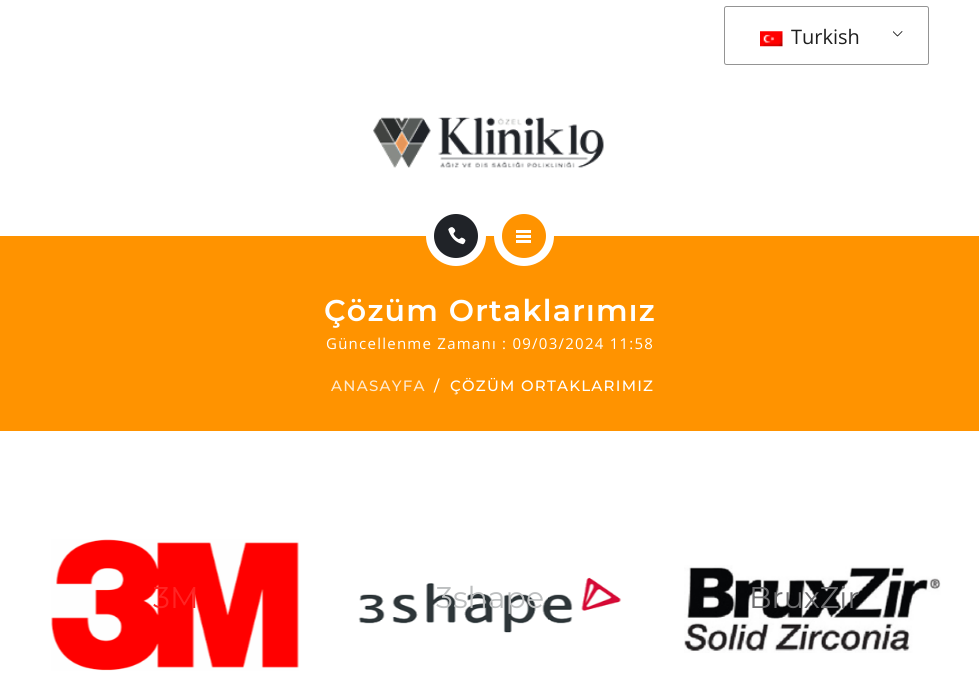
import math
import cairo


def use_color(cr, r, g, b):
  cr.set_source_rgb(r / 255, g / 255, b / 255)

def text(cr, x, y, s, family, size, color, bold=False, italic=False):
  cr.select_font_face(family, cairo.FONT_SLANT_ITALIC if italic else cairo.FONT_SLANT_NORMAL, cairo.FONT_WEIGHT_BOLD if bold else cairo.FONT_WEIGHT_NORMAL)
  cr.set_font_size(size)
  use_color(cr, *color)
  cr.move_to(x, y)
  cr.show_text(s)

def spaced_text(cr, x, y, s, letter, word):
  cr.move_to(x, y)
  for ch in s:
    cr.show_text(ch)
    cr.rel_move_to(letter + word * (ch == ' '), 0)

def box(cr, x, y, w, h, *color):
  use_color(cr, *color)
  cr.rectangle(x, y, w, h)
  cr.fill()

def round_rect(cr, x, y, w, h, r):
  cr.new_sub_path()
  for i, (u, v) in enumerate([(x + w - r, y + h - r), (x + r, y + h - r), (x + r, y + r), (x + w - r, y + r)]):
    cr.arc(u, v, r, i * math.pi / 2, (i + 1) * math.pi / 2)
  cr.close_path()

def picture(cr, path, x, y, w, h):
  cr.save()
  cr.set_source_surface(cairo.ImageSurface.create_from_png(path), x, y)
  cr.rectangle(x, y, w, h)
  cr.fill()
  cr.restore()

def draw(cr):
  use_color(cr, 255, 255, 255)
  cr.paint()
  picture(cr, "img_01.png", 893, 31, 10, 6)
  round_rect(cr, 724.5, 6.5, 204, 58, 2)
  use_color(cr, 148, 148, 148)
  cr.set_line_width(1)
  cr.stroke()
  picture(cr, "img_02.png", 760, 31, 23, 16)
  picture(cr, "img_03.png", 373, 117, 231, 51)
  box(cr, 0, 236, 979, 195, 255, 147, 0)
  use_color(cr, 32, 35, 40)
  cr.arc(456, 236, 26, 0, 2 * math.pi)
  cr.fill_preserve()
  use_color(cr, 255, 255, 255)
  cr.set_line_width(8)
  cr.stroke()
  picture(cr, "img_04.png", 448, 227, 18, 18)
  use_color(cr, 255, 147, 0)
  cr.arc(524, 236, 26, 0, 2 * math.pi)
  cr.fill_preserve()
  use_color(cr, 255, 255, 255)
  cr.stroke()
  box(cr, 516, 230, 15, 3, 255, 255, 255)
  box(cr, 516, 235, 15, 3, 255, 255, 255)
  box(cr, 516, 240, 15, 3, 255, 255, 255)
  picture(cr, "img_05.png", 51, 539, 248, 132)
  picture(cr, "img_06.png", 358, 577, 264, 56)
  picture(cr, "img_07.png", 684, 565, 257, 88)
  text(cr, 791, 44, "Turkish", "Open Sans", 20, (30, 30, 30))
  cr.select_font_face("Montserrat Thin")
  cr.set_font_size(30)
  use_color(cr, 255, 255, 255)
  spaced_text(cr, 324, 321, "Çözüm Ortaklarımız", 1.25, 0)
  cr.select_font_face("Open Sans")
  cr.set_font_size(15)
  spaced_text(cr, 326, 349, "Güncellenme Zamanı : 09/03/2024 11:58", 1.25, 0)
  cr.select_font_face("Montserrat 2 Thin")
  use_color(cr, 255, 233, 204)
  spaced_text(cr, 331, 391, "ANASAYFA", 1.25, 0)
  use_color(cr, 255, 255, 255)
  spaced_text(cr, 434, 391, "/", 1.25, 0)
  spaced_text(cr, 450, 391, "ÇÖZÜM ORTAKLARIMIZ", 1.25, 0)
  text(cr, 153, 608, "3M", "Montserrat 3 Thin", 30, (255, 37, 36))
  text(cr, 436, 608, "3shape", "Montserrat 3 Thin", 30, (189, 191, 192))
  text(cr, 749, 608, "BruxZir", "Montserrat 3 Thin", 30, (109, 109, 111))


surface = cairo.ImageSurface(cairo.FORMAT_RGB24, 979, 686)
cr = cairo.Context(surface)
options = cairo.FontOptions()
options.set_hint_metrics(cairo.HINT_METRICS_OFF)
options.set_hint_style(cairo.HINT_STYLE_NONE)
cr.set_font_options(options)
cr.set_miter_limit(4)
draw(cr)
surface.write_to_png("out.png")
